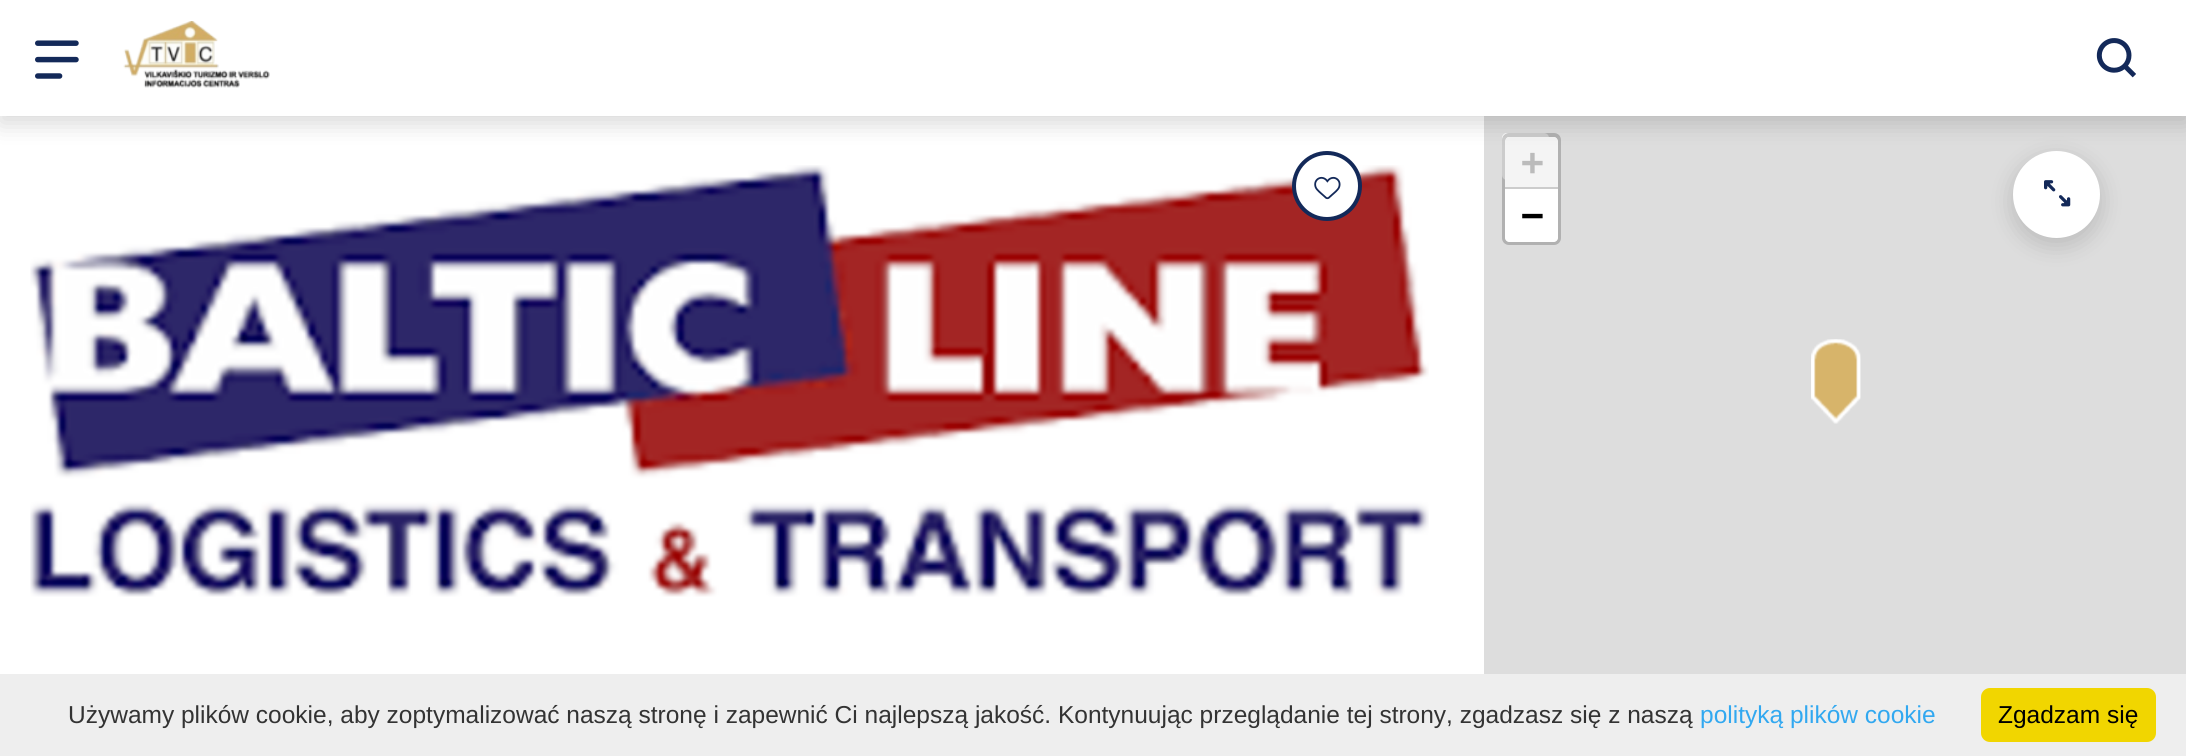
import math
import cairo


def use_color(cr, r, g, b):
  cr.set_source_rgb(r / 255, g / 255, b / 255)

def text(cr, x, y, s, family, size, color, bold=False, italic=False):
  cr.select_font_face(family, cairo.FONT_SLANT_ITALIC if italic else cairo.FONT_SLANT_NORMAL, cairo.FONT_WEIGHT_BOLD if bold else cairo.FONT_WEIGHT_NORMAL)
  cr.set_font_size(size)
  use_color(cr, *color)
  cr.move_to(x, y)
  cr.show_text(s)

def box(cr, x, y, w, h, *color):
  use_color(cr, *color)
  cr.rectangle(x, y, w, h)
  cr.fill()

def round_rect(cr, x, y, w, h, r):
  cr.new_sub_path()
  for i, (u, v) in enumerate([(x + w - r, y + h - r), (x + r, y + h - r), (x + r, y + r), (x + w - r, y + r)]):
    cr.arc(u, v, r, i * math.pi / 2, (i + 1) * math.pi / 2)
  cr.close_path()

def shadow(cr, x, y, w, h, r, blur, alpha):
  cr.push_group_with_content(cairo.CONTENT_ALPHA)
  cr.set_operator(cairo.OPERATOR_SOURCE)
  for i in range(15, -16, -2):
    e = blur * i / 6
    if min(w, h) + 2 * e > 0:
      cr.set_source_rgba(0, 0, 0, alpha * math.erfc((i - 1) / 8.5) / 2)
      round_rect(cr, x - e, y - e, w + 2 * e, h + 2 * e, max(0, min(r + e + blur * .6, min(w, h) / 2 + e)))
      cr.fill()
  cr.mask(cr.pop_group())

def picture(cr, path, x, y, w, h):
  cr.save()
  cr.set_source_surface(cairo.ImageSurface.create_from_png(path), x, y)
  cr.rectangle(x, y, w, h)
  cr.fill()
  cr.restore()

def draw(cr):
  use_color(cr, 255, 255, 255)
  cr.paint()
  picture(cr, "img_05.png", 30, 165, 1399, 432)
  use_color(cr, 255, 255, 255)
  cr.arc(1327, 186, 33, 0, 2 * math.pi)
  cr.fill_preserve()
  use_color(cr, 19, 41, 89)
  cr.set_line_width(4)
  cr.stroke()
  box(cr, 1484, 116, 702, 558, 221, 221, 221)
  use_color(cr, 255, 255, 255)
  round_rect(cr, 1502, 133, 47, 47, 5)
  cr.fill()
  round_rect(cr, 1504, 135, 55, 108, 5)
  cr.set_source_rgba(0, 0, 0, 0.2)
  cr.stroke()
  use_color(cr, 244, 244, 244)
  cr.new_path()
  cr.move_to(1509, 137)
  cr.line_to(1554, 137)
  cr.curve_to(1556, 137, 1558, 139, 1558, 141)
  cr.line_to(1558, 189)
  cr.line_to(1505, 189)
  cr.line_to(1505, 141)
  cr.curve_to(1505, 139, 1507, 137, 1509, 137)
  cr.close_path()
  cr.fill()
  use_color(cr, 0, 0, 0)
  shadow(cr, 2013, 158, 87, 87, 43.5, 12, 0.16)
  use_color(cr, 255, 255, 255)
  cr.arc(2056.5, 194.5, 43.5, 0, 2 * math.pi)
  cr.fill()
  use_color(cr, 0, 0, 0)
  shadow(cr, 0, 7, 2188, 116, 0, 12, 0.16)
  box(cr, 0, 0, 2186, 116, 255, 255, 255)
  picture(cr, "img_01.png", 35, 40, 44, 39)
  picture(cr, "img_02.png", 123, 21, 147, 67)
  picture(cr, "img_03.png", 2096, 38, 40, 40)
  picture(cr, "img_04.png", 1314, 176, 27, 24)
  box(cr, 1505, 187, 53, 2, 204, 204, 204)
  use_color(cr, 255, 255, 255)
  cr.new_path()
  cr.move_to(1505, 189)
  cr.line_to(1558, 189)
  cr.line_to(1558, 238)
  cr.curve_to(1558, 240, 1556, 242, 1554, 242)
  cr.line_to(1509, 242)
  cr.curve_to(1507, 242, 1505, 240, 1505, 238)
  cr.close_path()
  cr.fill()
  picture(cr, "img_06.png", 1811, 339, 50, 85)
  picture(cr, "img_07.png", 1811, 339, 50, 85)
  picture(cr, "img_08.png", 2044, 180, 27, 27)
  box(cr, 0, 674, 2186, 82, 238, 238, 238)
  use_color(cr, 241, 214, 0)
  round_rect(cr, 1981, 688, 175, 54, 9)
  cr.fill()
  text(cr, 1521, 175, "+", "DejaVu Sans Mono", 38, (187, 187, 187), bold=True)
  text(cr, 1521, 228, "−", "DejaVu Sans Mono", 38, (0, 0, 0), bold=True)
  text(cr, 68, 723, "Używamy plików cookie, aby zoptymalizować naszą stronę i zapewnić Ci najlepszą jakość. Kontynuując przeglądanie tej strony, zgadzasz się z naszą", "Liberation Sans", 24.5, (51, 51, 51))
  text(cr, 1700, 723, "polityką plików cookie", "Liberation Sans", 24.5, (49, 168, 240))
  text(cr, 1998, 723, "Zgadzam się", "Liberation Sans", 24.5, (0, 0, 0))


surface = cairo.ImageSurface(cairo.FORMAT_RGB24, 2186, 756)
cr = cairo.Context(surface)
options = cairo.FontOptions()
options.set_hint_metrics(cairo.HINT_METRICS_OFF)
options.set_hint_style(cairo.HINT_STYLE_NONE)
cr.set_font_options(options)
cr.set_miter_limit(4)
draw(cr)
surface.write_to_png("out.png")
